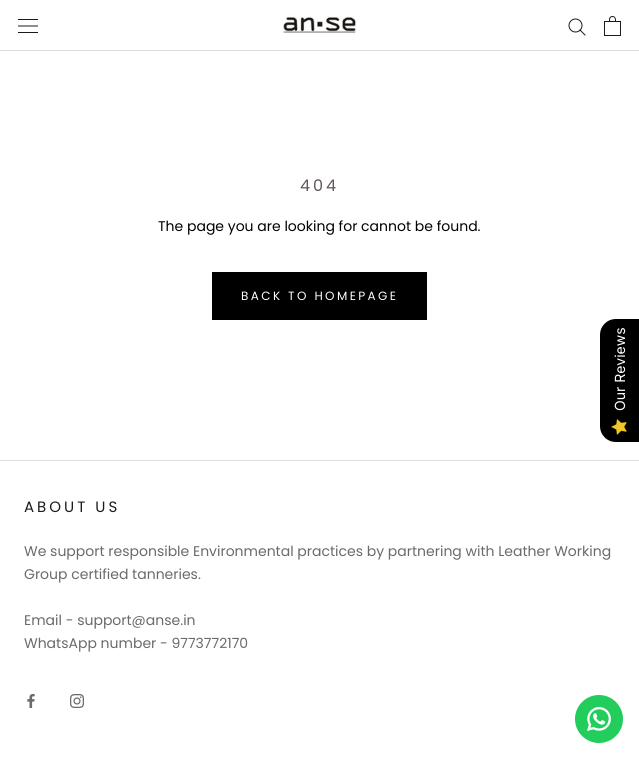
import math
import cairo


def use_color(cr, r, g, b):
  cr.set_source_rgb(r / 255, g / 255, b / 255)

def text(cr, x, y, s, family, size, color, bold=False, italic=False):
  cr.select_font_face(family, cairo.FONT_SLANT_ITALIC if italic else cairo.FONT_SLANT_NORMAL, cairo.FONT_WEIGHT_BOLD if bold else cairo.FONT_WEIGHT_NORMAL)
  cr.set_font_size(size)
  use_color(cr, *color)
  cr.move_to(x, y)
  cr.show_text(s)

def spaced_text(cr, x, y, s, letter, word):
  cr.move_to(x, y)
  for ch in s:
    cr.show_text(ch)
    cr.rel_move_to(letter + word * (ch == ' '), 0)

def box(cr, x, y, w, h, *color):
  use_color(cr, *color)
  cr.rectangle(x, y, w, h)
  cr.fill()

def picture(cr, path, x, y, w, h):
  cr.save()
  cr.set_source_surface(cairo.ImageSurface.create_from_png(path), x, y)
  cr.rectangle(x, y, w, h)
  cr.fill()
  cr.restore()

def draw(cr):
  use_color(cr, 255, 255, 255)
  cr.paint()
  box(cr, 0, 50, 639, 1, 221, 221, 221)
  picture(cr, "img_01.png", 18, 19, 20, 14)
  picture(cr, "img_02.png", 282, 15, 75, 18)
  cr.new_path()
  cr.move_to(585, 35)
  cr.line_to(580, 30)
  use_color(cr, 28, 27, 27)
  cr.set_line_width(1)
  cr.set_line_cap(cairo.LINE_CAP_SQUARE)
  cr.stroke()
  cr.arc(575.5, 25.5, 6.5, 0, 2 * math.pi)
  cr.set_line_cap(cairo.LINE_CAP_BUTT)
  cr.stroke()
  picture(cr, "img_03.png", 604, 16, 17, 20)
  cr.rectangle(212.5, 272.5, 214, 47)
  use_color(cr, 0, 0, 0)
  cr.stroke()
  box(cr, 213, 273, 213, 46, 0, 0, 0)
  box(cr, 0, 460, 639, 1, 221, 221, 221)
  picture(cr, "img_04.png", 27, 694, 8, 14)
  picture(cr, "img_05.png", 70, 694, 14, 14)
  use_color(cr, 0, 0, 0)
  cr.new_path()
  cr.move_to(600, 426)
  cr.line_to(600, 335)
  cr.curve_to(600, 326, 607, 319, 616, 319)
  cr.line_to(639, 319)
  cr.line_to(639, 442)
  cr.line_to(616, 442)
  cr.curve_to(607, 442, 600, 435, 600, 426)
  cr.close_path()
  cr.fill()
  picture(cr, "img_06.png", 611, 419, 16, 16)
  use_color(cr, 34, 205, 91)
  cr.arc(599, 719, 24, 0, 2 * math.pi)
  cr.fill()
  picture(cr, "img_07.png", 587, 707, 24, 24)
  cr.select_font_face("Poppins")
  cr.set_font_size(16)
  use_color(cr, 100, 86, 86)
  spaced_text(cr, 300, 191, "404", 3, 0)
  text(cr, 158, 231, "The page you are looking for cannot be found.", "Poppins", 14, (0, 0, 0))
  cr.set_font_size(12)
  use_color(cr, 255, 255, 255)
  spaced_text(cr, 241, 300, "BACK TO HOMEPAGE", 2.4, 0)
  cr.set_font_size(15)
  use_color(cr, 28, 27, 27)
  spaced_text(cr, 24, 512, "ABOUT US", 3, 0)
  text(cr, 24, 556, "We support responsible Environmental practices by partnering with Leather Working", "Poppins", 14, (106, 106, 106))
  text(cr, 24, 579, "Group certified tanneries.", "Poppins", 14, (106, 106, 106))
  text(cr, 24, 625, "Email - support@anse.in", "Poppins", 14, (106, 106, 106))
  text(cr, 24, 648, "WhatsApp number - 9773772170", "Poppins", 14, (106, 106, 106))
  cr.save()
  cr.translate(625, 411)
  cr.rotate(-90 * math.pi / 180)
  text(cr, 0, 0, "Our Reviews", "Inter", 14, (255, 255, 255))
  cr.restore()


surface = cairo.ImageSurface(cairo.FORMAT_RGB24, 639, 759)
cr = cairo.Context(surface)
options = cairo.FontOptions()
options.set_hint_metrics(cairo.HINT_METRICS_OFF)
options.set_hint_style(cairo.HINT_STYLE_NONE)
cr.set_font_options(options)
cr.set_miter_limit(4)
draw(cr)
surface.write_to_png("out.png")
